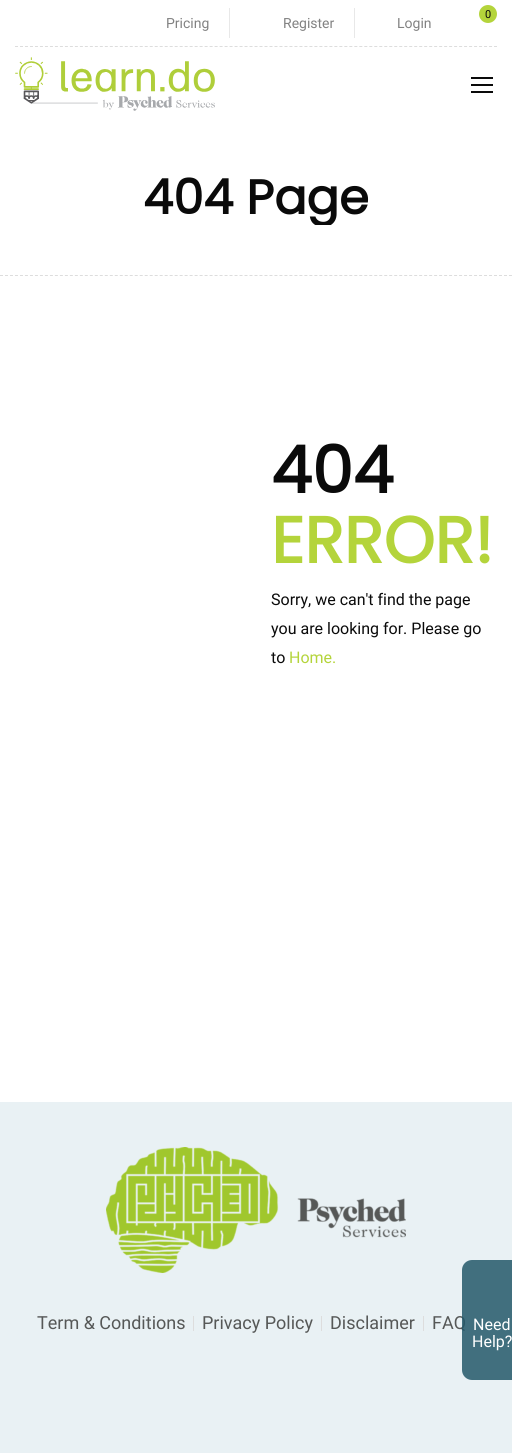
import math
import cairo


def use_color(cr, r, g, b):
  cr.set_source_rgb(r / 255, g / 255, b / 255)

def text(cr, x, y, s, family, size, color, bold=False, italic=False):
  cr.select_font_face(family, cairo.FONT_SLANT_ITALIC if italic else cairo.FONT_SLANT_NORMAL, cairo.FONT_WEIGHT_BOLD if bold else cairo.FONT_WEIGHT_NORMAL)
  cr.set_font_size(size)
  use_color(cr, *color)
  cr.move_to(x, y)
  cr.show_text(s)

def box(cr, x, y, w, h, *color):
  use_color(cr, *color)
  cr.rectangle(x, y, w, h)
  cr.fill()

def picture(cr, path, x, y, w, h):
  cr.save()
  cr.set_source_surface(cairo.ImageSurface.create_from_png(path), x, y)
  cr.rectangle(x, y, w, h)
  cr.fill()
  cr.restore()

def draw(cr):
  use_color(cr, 255, 255, 255)
  cr.paint()
  cr.new_path()
  cr.move_to(15, 46.5)
  cr.line_to(497, 46.5)
  use_color(cr, 221, 221, 221)
  cr.set_line_width(1)
  cr.set_dash([3, 1.99])
  cr.stroke()
  use_color(cr, 180, 212, 59)
  cr.arc(488, 14, 9, 0, 2 * math.pi)
  cr.fill()
  box(cr, 229, 8, 1, 30, 232, 232, 232)
  box(cr, 354, 8, 1, 30, 232, 232, 232)
  picture(cr, "img_01.png", 15, 57, 200, 54)
  box(cr, 471, 77, 22, 2, 10, 10, 10)
  box(cr, 471, 84, 22, 2, 10, 10, 10)
  box(cr, 471, 91, 22, 2, 10, 10, 10)
  cr.new_path()
  cr.move_to(0, 275.5)
  cr.line_to(512, 275.5)
  use_color(cr, 221, 221, 221)
  cr.stroke()
  box(cr, 0, 1102, 512, 351, 233, 241, 244)
  picture(cr, "img_02.png", 106, 1147, 300, 126)
  box(cr, 193, 1316, 1, 15, 221, 221, 221)
  box(cr, 321, 1316, 1, 15, 221, 221, 221)
  box(cr, 423, 1316, 1, 15, 221, 221, 221)
  text(cr, 485, 18, "0", "Roboto", 11, (10, 10, 10))
  text(cr, 166, 28, "Pricing", "Roboto", 14, (130, 130, 130))
  text(cr, 283, 28, "Register", "Roboto", 14, (130, 130, 130))
  text(cr, 397, 28, "Login", "Roboto", 14, (130, 130, 130))
  cr.save()
  cr.rectangle(0, 171, 512, 54)
  cr.clip()
  text(cr, 143, 214, "404 Page", "Poppins", 48, (10, 10, 10), bold=True)
  cr.restore()
  text(cr, 271, 493, "404", "Poppins", 65, (10, 10, 10), bold=True)
  text(cr, 271, 563, "ERROR!", "Poppins", 65, (180, 212, 59), bold=True)
  text(cr, 271, 605, "Sorry, we can't find the page", "Roboto", 16, (10, 10, 10))
  text(cr, 271, 634, "you are looking for. Please go", "Roboto", 16, (10, 10, 10))
  text(cr, 271, 663, "to", "Roboto", 16, (10, 10, 10))
  text(cr, 289, 663, "Home.", "Roboto", 16, (180, 212, 59))
  text(cr, 37, 1329, "Term & Conditions", "Roboto", 18, (86, 88, 87))
  text(cr, 202, 1329, "Privacy Policy", "Roboto", 18, (86, 88, 87))
  text(cr, 330, 1329, "Disclaimer", "Roboto", 18, (86, 88, 87))
  text(cr, 432, 1329, "FAQ", "Roboto", 18, (86, 88, 87))
  cr.set_source_rgba(0.141, 0.349, 0.416, 0.85)
  cr.new_path()
  cr.move_to(472, 1260)
  cr.line_to(512, 1260)
  cr.line_to(512, 1380)
  cr.line_to(472, 1380)
  cr.curve_to(466.5, 1380, 462, 1375.5, 462, 1370)
  cr.line_to(462, 1270)
  cr.curve_to(462, 1264.5, 466.5, 1260, 472, 1260)
  cr.close_path()
  cr.fill()
  text(cr, 473, 1330, "Need", "Roboto", 16, (255, 255, 255))
  text(cr, 472, 1347, "Help?", "Roboto", 16, (255, 255, 255))


surface = cairo.ImageSurface(cairo.FORMAT_RGB24, 512, 1453)
cr = cairo.Context(surface)
options = cairo.FontOptions()
options.set_hint_metrics(cairo.HINT_METRICS_OFF)
options.set_hint_style(cairo.HINT_STYLE_NONE)
cr.set_font_options(options)
cr.set_miter_limit(4)
draw(cr)
surface.write_to_png("out.png")
